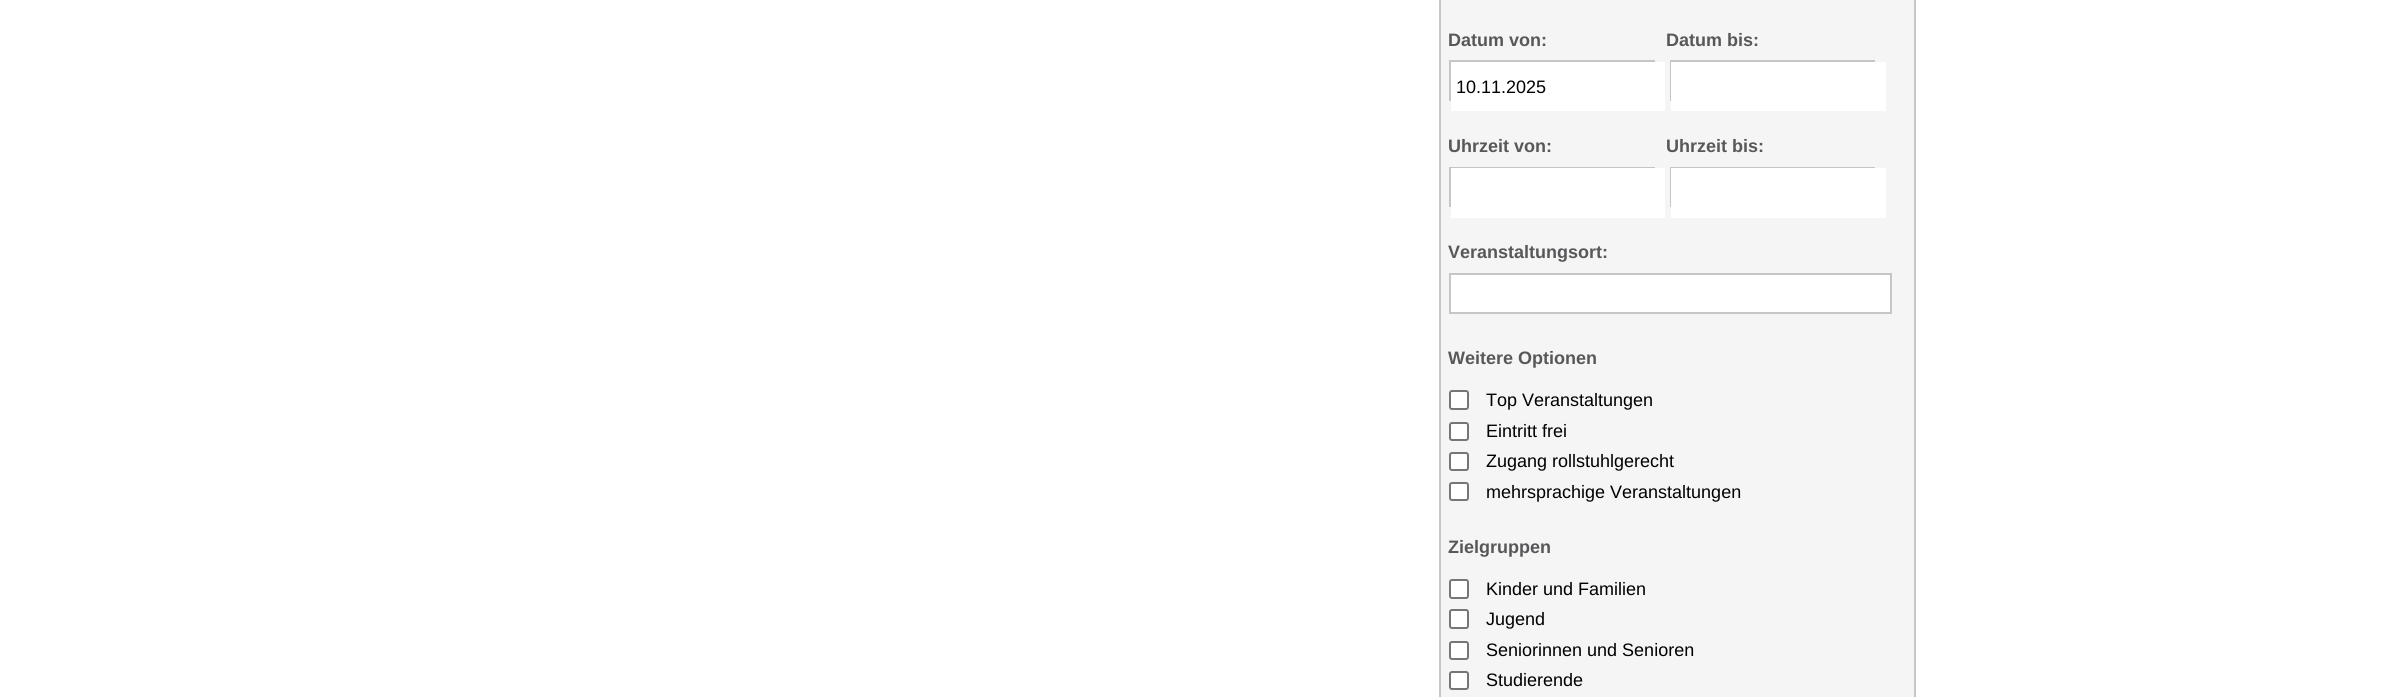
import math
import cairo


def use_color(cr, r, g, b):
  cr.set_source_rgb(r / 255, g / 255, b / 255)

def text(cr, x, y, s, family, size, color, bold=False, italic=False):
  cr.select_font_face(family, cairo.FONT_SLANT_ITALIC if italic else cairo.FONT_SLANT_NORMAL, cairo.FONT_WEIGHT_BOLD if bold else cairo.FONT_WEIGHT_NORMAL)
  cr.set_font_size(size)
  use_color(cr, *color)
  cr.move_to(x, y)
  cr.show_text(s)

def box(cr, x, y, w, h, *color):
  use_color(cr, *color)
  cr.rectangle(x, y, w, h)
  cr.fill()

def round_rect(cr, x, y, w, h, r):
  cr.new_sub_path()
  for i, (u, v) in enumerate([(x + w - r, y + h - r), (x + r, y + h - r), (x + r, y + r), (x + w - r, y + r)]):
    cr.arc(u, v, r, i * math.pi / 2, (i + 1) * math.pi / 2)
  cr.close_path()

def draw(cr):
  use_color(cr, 255, 255, 255)
  cr.paint()
  use_color(cr, 245, 245, 246)
  cr.rectangle(1440, -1, 475, 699)
  cr.fill_preserve()
  use_color(cr, 197, 198, 200)
  cr.stroke()
  cr.rectangle(1450, 61, 204, 39)
  cr.stroke()
  box(cr, 1451, 62, 214, 49, 255, 255, 255)
  cr.rectangle(1671, 61, 203, 39)
  use_color(cr, 197, 198, 200)
  cr.stroke()
  box(cr, 1671, 62, 215, 49, 255, 255, 255)
  cr.rectangle(1450, 168, 204, 38)
  use_color(cr, 197, 198, 200)
  cr.stroke()
  box(cr, 1451, 168, 214, 50, 255, 255, 255)
  cr.rectangle(1671, 168, 203, 38)
  use_color(cr, 197, 198, 200)
  cr.stroke()
  box(cr, 1671, 168, 215, 50, 255, 255, 255)
  cr.rectangle(1450, 274, 441, 39)
  cr.fill_preserve()
  use_color(cr, 197, 198, 200)
  cr.stroke()
  use_color(cr, 255, 255, 255)
  round_rect(cr, 1450, 391, 18, 18, 2)
  cr.fill_preserve()
  use_color(cr, 118, 118, 118)
  cr.stroke()
  use_color(cr, 255, 255, 255)
  round_rect(cr, 1450, 423, 18, 17, 2)
  cr.fill_preserve()
  use_color(cr, 118, 118, 118)
  cr.stroke()
  use_color(cr, 255, 255, 255)
  round_rect(cr, 1450, 453, 18, 17, 2)
  cr.fill_preserve()
  use_color(cr, 118, 118, 118)
  cr.stroke()
  use_color(cr, 255, 255, 255)
  round_rect(cr, 1450, 483, 18, 17, 2)
  cr.fill_preserve()
  use_color(cr, 118, 118, 118)
  cr.stroke()
  use_color(cr, 255, 255, 255)
  round_rect(cr, 1450, 580, 18, 18, 2)
  cr.fill_preserve()
  use_color(cr, 118, 118, 118)
  cr.stroke()
  use_color(cr, 255, 255, 255)
  round_rect(cr, 1450, 610, 18, 18, 2)
  cr.fill_preserve()
  use_color(cr, 118, 118, 118)
  cr.stroke()
  use_color(cr, 255, 255, 255)
  round_rect(cr, 1450, 642, 18, 17, 2)
  cr.fill_preserve()
  use_color(cr, 118, 118, 118)
  cr.stroke()
  use_color(cr, 255, 255, 255)
  round_rect(cr, 1450, 672, 18, 17, 2)
  cr.fill_preserve()
  use_color(cr, 118, 118, 118)
  cr.stroke()
  text(cr, 1448, 46, "Datum von:", "Liberation Sans", 18, (88, 88, 90), bold=True)
  text(cr, 1666, 46, "Datum bis:", "Liberation Sans", 18, (88, 88, 90), bold=True)
  text(cr, 1456, 93, "10.11.2025", "Liberation Sans", 18, (0, 0, 0))
  text(cr, 1448, 152, "Uhrzeit von:", "Liberation Sans", 18, (88, 88, 90), bold=True)
  text(cr, 1666, 152, "Uhrzeit bis:", "Liberation Sans", 18, (88, 88, 90), bold=True)
  text(cr, 1448, 258, "Veranstaltungsort:", "Liberation Sans", 18, (88, 88, 90), bold=True)
  text(cr, 1448, 364, "Weitere Optionen", "Liberation Sans", 18, (88, 88, 90), bold=True)
  text(cr, 1486, 406, "Top Veranstaltungen", "Liberation Sans", 18, (0, 0, 0))
  text(cr, 1486, 437, "Eintritt frei", "Liberation Sans", 18, (0, 0, 0))
  text(cr, 1486, 467, "Zugang rollstuhlgerecht", "Liberation Sans", 18, (0, 0, 0))
  text(cr, 1486, 498, "mehrsprachige Veranstaltungen", "Liberation Sans", 18, (0, 0, 0))
  text(cr, 1448, 553, "Zielgruppen", "Liberation Sans", 18, (88, 88, 90), bold=True)
  text(cr, 1486, 595, "Kinder und Familien", "Liberation Sans", 18, (0, 0, 0))
  text(cr, 1486, 625, "Jugend", "Liberation Sans", 18, (0, 0, 0))
  text(cr, 1486, 656, "Seniorinnen und Senioren", "Liberation Sans", 18, (0, 0, 0))
  text(cr, 1486, 686, "Studierende", "Liberation Sans", 18, (0, 0, 0))


surface = cairo.ImageSurface(cairo.FORMAT_RGB24, 2389, 697)
cr = cairo.Context(surface)
options = cairo.FontOptions()
options.set_hint_metrics(cairo.HINT_METRICS_OFF)
options.set_hint_style(cairo.HINT_STYLE_NONE)
cr.set_font_options(options)
cr.set_miter_limit(4)
draw(cr)
surface.write_to_png("out.png")
